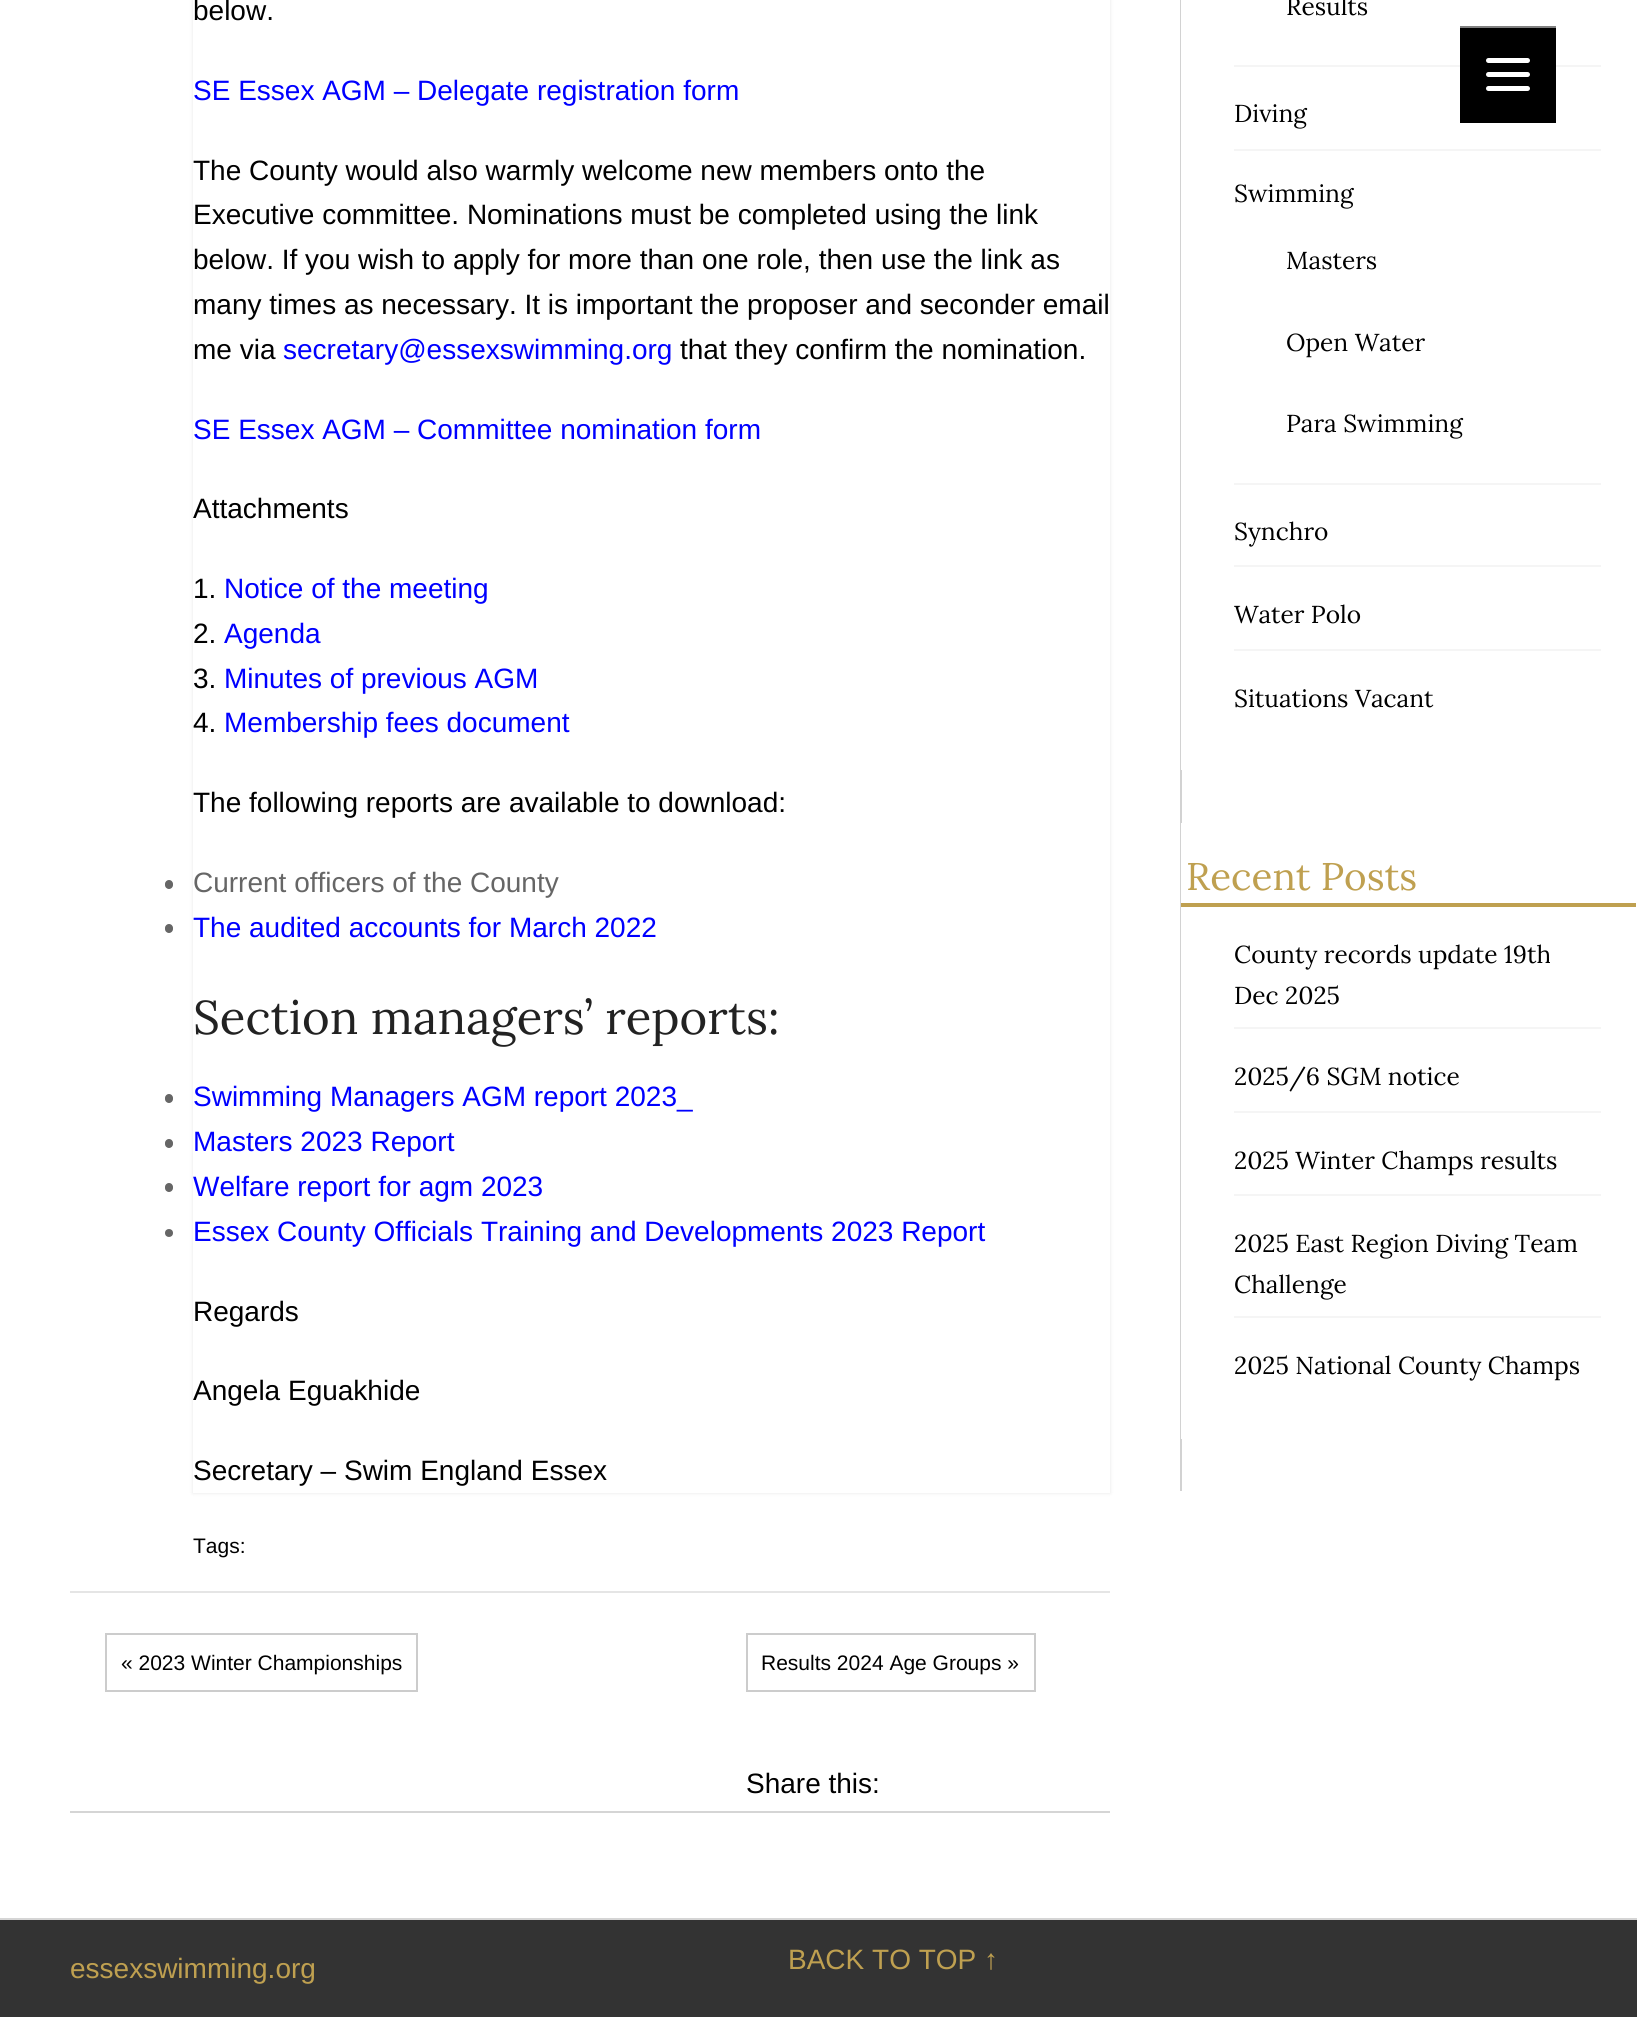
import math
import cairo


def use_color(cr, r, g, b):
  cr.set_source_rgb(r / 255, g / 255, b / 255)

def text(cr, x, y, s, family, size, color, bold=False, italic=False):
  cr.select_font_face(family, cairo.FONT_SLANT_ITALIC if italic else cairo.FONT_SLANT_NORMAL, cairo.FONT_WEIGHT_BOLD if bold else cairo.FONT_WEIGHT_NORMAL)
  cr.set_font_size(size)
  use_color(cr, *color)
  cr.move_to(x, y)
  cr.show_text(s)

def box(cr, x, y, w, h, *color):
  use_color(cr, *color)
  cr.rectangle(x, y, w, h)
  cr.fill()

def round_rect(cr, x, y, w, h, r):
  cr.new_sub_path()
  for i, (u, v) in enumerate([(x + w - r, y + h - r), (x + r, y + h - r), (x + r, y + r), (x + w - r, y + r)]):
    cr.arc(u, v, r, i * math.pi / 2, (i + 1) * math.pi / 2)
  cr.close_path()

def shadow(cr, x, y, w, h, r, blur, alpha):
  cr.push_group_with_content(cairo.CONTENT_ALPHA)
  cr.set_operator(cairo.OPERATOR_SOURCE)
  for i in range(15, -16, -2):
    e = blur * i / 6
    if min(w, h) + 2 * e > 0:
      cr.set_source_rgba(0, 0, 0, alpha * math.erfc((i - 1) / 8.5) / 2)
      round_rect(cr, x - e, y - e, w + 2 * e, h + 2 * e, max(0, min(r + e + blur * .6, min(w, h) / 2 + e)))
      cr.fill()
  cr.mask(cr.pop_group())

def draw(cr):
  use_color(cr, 51, 51, 51)
  cr.paint()
  box(cr, 0, 0, 1637, 1918, 255, 255, 255)
  box(cr, 0, 1918, 1637, 2, 213, 213, 213)
  box(cr, 70, 1811, 1040, 2, 213, 213, 213)
  box(cr, 70, 1591, 1040, 2, 229, 229, 229)
  use_color(cr, 0, 0, 0)
  shadow(cr, 193, -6, 917, 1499, 0, 2, 0.1)
  box(cr, 193, 0, 917, 1493, 255, 255, 255)
  use_color(cr, 102, 102, 102)
  round_rect(cr, 165, 880, 8, 9, 4)
  cr.fill()
  round_rect(cr, 165, 924, 8, 9, 4)
  cr.fill()
  round_rect(cr, 165, 1094, 8, 9, 4)
  cr.fill()
  round_rect(cr, 165, 1139, 8, 9, 4)
  cr.fill()
  round_rect(cr, 165, 1183, 8, 9, 4)
  cr.fill()
  cr.arc(169, 1233, 4, 0, 2 * math.pi)
  cr.fill()
  cr.rectangle(106, 1634, 311, 57)
  use_color(cr, 204, 204, 204)
  cr.stroke()
  cr.rectangle(747, 1634, 288, 57)
  cr.stroke()
  box(cr, 1180, 0, 2, 1491, 210, 210, 210)
  box(cr, 1181, 0, 1, 770, 255, 255, 255)
  box(cr, 1234, 65, 367, 2, 245, 245, 245)
  box(cr, 1234, 149, 367, 2, 245, 245, 245)
  box(cr, 1234, 483, 367, 2, 245, 245, 245)
  box(cr, 1234, 565, 367, 2, 245, 245, 245)
  box(cr, 1234, 649, 367, 2, 245, 245, 245)
  box(cr, 1181, 823, 1, 616, 255, 255, 255)
  box(cr, 1181, 903, 455, 4, 191, 160, 80)
  box(cr, 1234, 1027, 367, 2, 245, 245, 245)
  box(cr, 1234, 1111, 367, 2, 245, 245, 245)
  box(cr, 1234, 1194, 367, 2, 245, 245, 245)
  box(cr, 1234, 1316, 367, 2, 245, 245, 245)
  box(cr, 1460, 28, 96, 95, 0, 0, 0)
  box(cr, 1460, 26, 96, 2, 128, 128, 128)
  use_color(cr, 255, 255, 255)
  round_rect(cr, 1486, 72, 44, 5, 2.5)
  cr.fill()
  round_rect(cr, 1486, 58, 44, 5, 2.5)
  cr.fill()
  round_rect(cr, 1486, 86, 44, 5, 2.5)
  cr.fill()
  text(cr, 193, 20, "below.", "Liberation Sans", 28, (0, 0, 0))
  text(cr, 193, 100, "SE Essex AGM – Delegate registration form", "Liberation Sans", 28, (0, 0, 255))
  text(cr, 193, 180, "The County would also warmly welcome new members onto the", "Liberation Sans", 28, (0, 0, 0))
  text(cr, 193, 224, "Executive committee. Nominations must be completed using the link", "Liberation Sans", 28, (0, 0, 0))
  text(cr, 193, 269, "below. If you wish to apply for more than one role, then use the link as", "Liberation Sans", 28, (0, 0, 0))
  text(cr, 193, 314, "many times as necessary. It is important the proposer and seconder email", "Liberation Sans", 28, (0, 0, 0))
  text(cr, 193, 359, "me via", "Liberation Sans", 28, (0, 0, 0))
  text(cr, 283, 359, "secretary@essexswimming.org", "Liberation Sans", 28, (0, 0, 255))
  text(cr, 680, 359, "that they confirm the nomination.", "Liberation Sans", 28, (0, 0, 0))
  text(cr, 193, 439, "SE Essex AGM – Committee nomination form", "Liberation Sans", 28, (0, 0, 255))
  text(cr, 193, 518, "Attachments", "Liberation Sans", 28, (0, 0, 0))
  text(cr, 193, 598, "1.", "Liberation Sans", 28, (0, 0, 0))
  text(cr, 224, 598, "Notice of the meeting", "Liberation Sans", 28, (0, 0, 255))
  text(cr, 193, 643, "2.", "Liberation Sans", 28, (0, 0, 0))
  text(cr, 224, 643, "Agenda", "Liberation Sans", 28, (0, 0, 255))
  text(cr, 193, 688, "3.", "Liberation Sans", 28, (0, 0, 0))
  text(cr, 224, 688, "Minutes of previous AGM", "Liberation Sans", 28, (0, 0, 255))
  text(cr, 193, 732, "4.", "Liberation Sans", 28, (0, 0, 0))
  text(cr, 224, 732, "Membership fees document", "Liberation Sans", 28, (0, 0, 255))
  text(cr, 193, 812, "The following reports are available to download:", "Liberation Sans", 28, (0, 0, 0))
  text(cr, 193, 892, "Current officers of the County", "Liberation Sans", 28, (102, 102, 102))
  text(cr, 193, 937, "The audited accounts for March 2022", "Liberation Sans", 28, (0, 0, 255))
  text(cr, 193, 1034, "Section managers’ reports:", "Lora", 47.25, (34, 34, 34))
  text(cr, 193, 1106, "Swimming Managers AGM report 2023_", "Liberation Sans", 28, (0, 0, 255))
  text(cr, 193, 1151, "Masters 2023 Report", "Liberation Sans", 28, (0, 0, 255))
  text(cr, 193, 1196, "Welfare report for agm 2023", "Liberation Sans", 28, (0, 0, 255))
  text(cr, 193, 1241, "Essex County Officials Training and Developments 2023 Report", "Liberation Sans", 28, (0, 0, 255))
  text(cr, 193, 1321, "Regards", "Liberation Sans", 28, (0, 0, 0))
  text(cr, 193, 1400, "Angela Eguakhide", "Liberation Sans", 28, (0, 0, 0))
  text(cr, 193, 1480, "Secretary – Swim England Essex", "Liberation Sans", 28, (0, 0, 0))
  text(cr, 193, 1553, "Tags:", "Liberation Sans", 21, (0, 0, 0))
  text(cr, 121, 1670, "« 2023 Winter Championships", "Liberation Sans", 21, (0, 0, 0))
  text(cr, 761, 1670, "Results 2024 Age Groups »", "Liberation Sans", 21, (0, 0, 0))
  text(cr, 746, 1793, "Share this:", "Liberation Sans", 28, (0, 0, 0))
  text(cr, 1286, 15, "Results", "Lora", 24.5, (0, 0, 0))
  text(cr, 1234, 122, "Diving", "Lora", 24.5, (0, 0, 0))
  text(cr, 1234, 202, "Swimming", "Lora", 24.5, (0, 0, 0))
  text(cr, 1286, 269, "Masters", "Lora", 24.5, (0, 0, 0))
  text(cr, 1286, 351, "Open Water", "Lora", 24.5, (0, 0, 0))
  text(cr, 1286, 432, "Para Swimming", "Lora", 24.5, (0, 0, 0))
  text(cr, 1234, 540, "Synchro", "Lora", 24.5, (0, 0, 0))
  text(cr, 1234, 623, "Water Polo", "Lora", 24.5, (0, 0, 0))
  text(cr, 1234, 707, "Situations Vacant", "Lora", 24.5, (0, 0, 0))
  text(cr, 1186, 890, "Recent Posts", "Lora", 38.5, (191, 160, 80))
  text(cr, 1234, 963, "County records update 19th", "Lora", 24.5, (0, 0, 0))
  text(cr, 1234, 1004, "Dec 2025", "Lora", 24.5, (0, 0, 0))
  text(cr, 1234, 1085, "2025/6 SGM notice", "Lora", 24.5, (0, 0, 0))
  text(cr, 1234, 1169, "2025 Winter Champs results", "Lora", 24.5, (0, 0, 0))
  text(cr, 1234, 1252, "2025 East Region Diving Team", "Lora", 24.5, (0, 0, 0))
  text(cr, 1234, 1293, "Challenge", "Lora", 24.5, (0, 0, 0))
  text(cr, 1234, 1374, "2025 National County Champs", "Lora", 24.5, (0, 0, 0))
  text(cr, 70, 1978, "essexswimming.org", "Liberation Sans", 28, (191, 160, 80))
  text(cr, 788, 1969, "BACK TO TOP ↑", "Liberation Sans", 28, (191, 160, 80))


surface = cairo.ImageSurface(cairo.FORMAT_RGB24, 1637, 2017)
cr = cairo.Context(surface)
options = cairo.FontOptions()
options.set_hint_metrics(cairo.HINT_METRICS_OFF)
options.set_hint_style(cairo.HINT_STYLE_NONE)
cr.set_font_options(options)
cr.set_miter_limit(4)
draw(cr)
surface.write_to_png("out.png")
